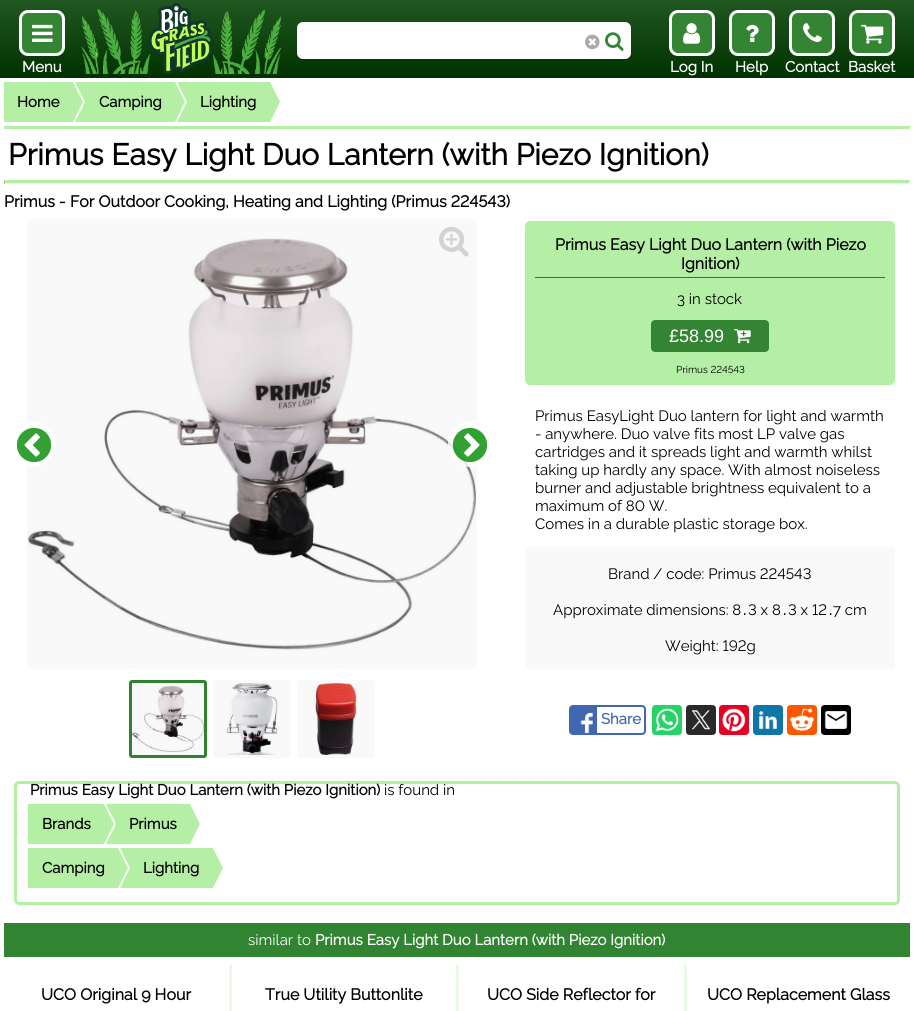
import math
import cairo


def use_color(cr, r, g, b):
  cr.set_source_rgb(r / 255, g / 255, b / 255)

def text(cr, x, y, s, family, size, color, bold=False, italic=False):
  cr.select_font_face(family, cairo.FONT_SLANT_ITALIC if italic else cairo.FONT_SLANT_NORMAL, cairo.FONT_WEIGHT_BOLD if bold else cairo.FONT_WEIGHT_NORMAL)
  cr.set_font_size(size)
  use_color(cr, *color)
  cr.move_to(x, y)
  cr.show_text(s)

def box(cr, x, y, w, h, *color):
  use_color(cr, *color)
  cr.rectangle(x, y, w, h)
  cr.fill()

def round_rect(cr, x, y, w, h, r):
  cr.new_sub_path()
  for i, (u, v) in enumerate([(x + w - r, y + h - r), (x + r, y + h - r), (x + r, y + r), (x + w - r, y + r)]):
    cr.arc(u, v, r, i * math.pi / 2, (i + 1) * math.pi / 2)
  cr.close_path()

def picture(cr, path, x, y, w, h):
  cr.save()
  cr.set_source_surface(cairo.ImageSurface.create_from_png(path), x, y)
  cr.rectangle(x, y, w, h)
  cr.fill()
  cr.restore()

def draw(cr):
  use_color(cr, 255, 255, 255)
  cr.paint()
  gradient = cairo.LinearGradient(457, 78, 457, 0)
  gradient.add_color_stop_rgba(0, 0, 0.192, 0, 1)
  gradient.add_color_stop_rgba(1, 0.129, 0.341, 0.129, 1)
  cr.set_source(gradient)
  cr.rectangle(0, 0, 914, 78)
  cr.fill()
  use_color(cr, 255, 255, 255)
  round_rect(cr, 298, 23, 332, 35, 5)
  cr.fill_preserve()
  cr.stroke()
  picture(cr, "img_01.png", 585, 34, 15, 16)
  picture(cr, "img_02.png", 605, 32, 19, 19)
  use_color(cr, 51, 133, 51)
  round_rect(cr, 20.5, 11.5, 43, 43, 7.5)
  cr.fill_preserve()
  use_color(cr, 255, 255, 255)
  cr.set_line_width(3)
  cr.stroke()
  picture(cr, "img_03.png", 32, 24, 21, 18)
  picture(cr, "img_04.png", 81, 3, 201, 71)
  use_color(cr, 51, 133, 51)
  round_rect(cr, 670.5, 11.5, 43, 43, 7.5)
  cr.fill_preserve()
  use_color(cr, 255, 255, 255)
  cr.stroke()
  picture(cr, "img_05.png", 683, 23, 18, 21)
  use_color(cr, 51, 133, 51)
  round_rect(cr, 730.5, 11.5, 43, 43, 7.5)
  cr.fill_preserve()
  use_color(cr, 255, 255, 255)
  cr.stroke()
  picture(cr, "img_06.png", 746, 24, 13, 18)
  use_color(cr, 51, 133, 51)
  round_rect(cr, 790.5, 11.5, 43, 43, 7.5)
  cr.fill_preserve()
  use_color(cr, 255, 255, 255)
  cr.stroke()
  picture(cr, "img_07.png", 803, 23, 19, 19)
  use_color(cr, 51, 133, 51)
  round_rect(cr, 850.5, 11.5, 43, 43, 7.5)
  cr.fill_preserve()
  use_color(cr, 255, 255, 255)
  cr.stroke()
  picture(cr, "img_08.png", 861, 24, 23, 20)
  box(cr, 4, 82, 69, 40, 181, 239, 165)
  cr.new_path()
  cr.move_to(73, 122)
  cr.line_to(73, 82)
  cr.line_to(83, 102)
  cr.close_path()
  cr.fill()
  box(cr, 85, 82, 90, 40, 181, 239, 165)
  cr.new_path()
  cr.move_to(75, 82)
  cr.line_to(85, 82)
  cr.line_to(85, 102)
  cr.close_path()
  cr.move_to(85, 122)
  cr.line_to(75, 122)
  cr.line_to(85, 102)
  cr.close_path()
  cr.fill()
  cr.new_path()
  cr.move_to(175, 122)
  cr.line_to(175, 82)
  cr.line_to(185, 102)
  cr.close_path()
  cr.fill()
  box(cr, 187, 82, 83, 40, 181, 239, 165)
  cr.new_path()
  cr.move_to(177, 82)
  cr.line_to(187, 82)
  cr.line_to(187, 102)
  cr.close_path()
  cr.move_to(187, 122)
  cr.line_to(177, 122)
  cr.line_to(187, 102)
  cr.close_path()
  cr.fill()
  cr.new_path()
  cr.move_to(270, 122)
  cr.line_to(270, 82)
  cr.line_to(280, 102)
  cr.close_path()
  cr.fill()
  box(cr, 4, 126, 906, 3, 181, 239, 165)
  cr.new_path()
  cr.move_to(4, 180)
  cr.line_to(910, 180)
  cr.line_to(909, 183)
  cr.line_to(5, 183)
  cr.close_path()
  cr.fill()
  use_color(cr, 238, 238, 238)
  cr.new_path()
  cr.move_to(910, 180)
  cr.line_to(910, 184)
  cr.line_to(909, 183)
  cr.close_path()
  cr.fill()
  box(cr, 4, 183, 906, 1, 238, 238, 238)
  use_color(cr, 159, 159, 159)
  cr.new_path()
  cr.move_to(4, 184)
  cr.line_to(4, 180)
  cr.line_to(5, 183)
  cr.close_path()
  cr.fill()
  round_rect(cr, 27.5, 219.5, 449, 449, 5.5)
  use_color(cr, 249, 249, 249)
  cr.set_line_width(1)
  cr.stroke()
  picture(cr, "img_09.png", 28, 220, 448, 448)
  picture(cr, "img_10.png", 439, 226, 30, 31)
  cr.set_source_rgba(1, 1, 1, 0.8)
  cr.new_path()
  cr.move_to(34, 421)
  cr.curve_to(46, 421, 56, 431.5, 56, 444)
  cr.curve_to(56, 456.5, 46, 467, 34, 467)
  cr.curve_to(22, 467, 12, 456.5, 12, 444)
  cr.curve_to(12, 431.5, 22, 421, 34, 421)
  cr.close_path()
  cr.fill()
  picture(cr, "img_11.png", 16, 427, 36, 36)
  cr.new_path()
  cr.move_to(470, 421)
  cr.curve_to(482, 421, 492, 431.5, 492, 444)
  cr.curve_to(492, 456.5, 482, 467, 470, 467)
  cr.curve_to(458, 467, 448, 456.5, 448, 444)
  cr.curve_to(448, 431.5, 458, 421, 470, 421)
  cr.close_path()
  cr.fill()
  picture(cr, "img_12.png", 452, 427, 36, 36)
  round_rect(cr, 130.5, 681.5, 75, 75, 1.5)
  use_color(cr, 48, 129, 48)
  cr.set_line_width(3)
  cr.stroke()
  picture(cr, "img_13.png", 132, 683, 72, 72)
  round_rect(cr, 214.5, 681.5, 75, 75, 1.5)
  use_color(cr, 249, 249, 249)
  cr.stroke()
  picture(cr, "img_14.png", 216, 683, 72, 72)
  round_rect(cr, 298.5, 681.5, 75, 75, 1.5)
  cr.stroke()
  picture(cr, "img_15.png", 300, 683, 72, 72)
  use_color(cr, 181, 239, 165)
  round_rect(cr, 525, 221, 370, 164, 5)
  cr.fill()
  box(cr, 535, 277, 350, 1, 0, 153, 0)
  use_color(cr, 51, 133, 51)
  round_rect(cr, 652, 321, 116, 30, 3)
  cr.fill_preserve()
  cr.set_line_width(2)
  cr.stroke()
  picture(cr, "img_16.png", 734, 329, 17, 15)
  use_color(cr, 249, 249, 249)
  round_rect(cr, 525, 547, 370, 122, 5)
  cr.fill()
  round_rect(cr, 570, 706, 75, 28, 3)
  use_color(cr, 66, 103, 178)
  cr.stroke()
  picture(cr, "img_17.png", 571, 707, 26, 26)
  picture(cr, "img_18.png", 652, 705, 30, 30)
  picture(cr, "img_19.png", 686, 705, 30, 30)
  picture(cr, "img_20.png", 719, 705, 30, 30)
  picture(cr, "img_21.png", 753, 705, 30, 30)
  picture(cr, "img_22.png", 787, 705, 30, 30)
  picture(cr, "img_23.png", 821, 705, 30, 30)
  round_rect(cr, 15.5, 782.5, 883, 121, 3.5)
  use_color(cr, 181, 239, 165)
  cr.set_line_width(3)
  cr.stroke()
  box(cr, 28, 804, 76, 40, 181, 239, 165)
  cr.new_path()
  cr.move_to(104, 844)
  cr.line_to(104, 804)
  cr.line_to(114, 824)
  cr.close_path()
  cr.fill()
  box(cr, 116, 804, 74, 40, 181, 239, 165)
  cr.new_path()
  cr.move_to(106, 804)
  cr.line_to(116, 804)
  cr.line_to(116, 824)
  cr.close_path()
  cr.move_to(116, 844)
  cr.line_to(106, 844)
  cr.line_to(116, 824)
  cr.close_path()
  cr.fill()
  cr.new_path()
  cr.move_to(190, 844)
  cr.line_to(190, 804)
  cr.line_to(200, 824)
  cr.close_path()
  cr.fill()
  box(cr, 28, 848, 90, 40, 181, 239, 165)
  cr.new_path()
  cr.move_to(118, 888)
  cr.line_to(118, 848)
  cr.line_to(128, 868)
  cr.close_path()
  cr.fill()
  box(cr, 130, 848, 83, 40, 181, 239, 165)
  cr.new_path()
  cr.move_to(120, 848)
  cr.line_to(130, 848)
  cr.line_to(130, 868)
  cr.close_path()
  cr.move_to(130, 888)
  cr.line_to(120, 888)
  cr.line_to(130, 868)
  cr.close_path()
  cr.fill()
  cr.new_path()
  cr.move_to(213, 888)
  cr.line_to(213, 848)
  cr.line_to(223, 868)
  cr.close_path()
  cr.fill()
  box(cr, 4, 923, 906, 34, 49, 132, 49)
  box(cr, 229, 965, 3, 46, 235, 250, 230)
  box(cr, 456, 965, 3, 46, 235, 250, 230)
  box(cr, 684, 965, 3, 46, 235, 250, 230)
  text(cr, 22, 72, "Menu", "Raleway", 15, (255, 255, 255), bold=True)
  text(cr, 670, 72, "Log In", "Raleway", 15, (255, 255, 255), bold=True)
  text(cr, 735, 72, "Help", "Raleway", 15, (255, 255, 255), bold=True)
  text(cr, 785, 72, "Contact", "Raleway", 15, (255, 255, 255), bold=True)
  text(cr, 848, 72, "Basket", "Raleway", 15, (255, 255, 255), bold=True)
  text(cr, 17, 107, "Home", "Raleway", 15, (0, 0, 0), bold=True)
  text(cr, 99, 107, "Camping", "Raleway", 15, (0, 0, 0), bold=True)
  text(cr, 200, 107, "Lighting", "Raleway", 15, (0, 0, 0), bold=True)
  text(cr, 8, 165, "Primus Easy Light Duo Lantern (with Piezo Ignition)", "Raleway", 30, (0, 0, 0), bold=True)
  text(cr, 4, 207, "Primus - For Outdoor Cooking, Heating and Lighting (Primus 224543)", "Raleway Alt", 16, (0, 0, 0), bold=True)
  text(cr, 555, 250, "Primus Easy Light Duo Lantern (with Piezo", "Raleway", 16, (0, 0, 0), bold=True)
  text(cr, 681, 269, "Ignition)", "Raleway", 16, (0, 0, 0), bold=True)
  text(cr, 677, 304, "3 in stock", "Raleway Thin", 15, (0, 0, 0))
  text(cr, 669, 342, "£58.99", "Liberation Sans", 18, (255, 255, 255))
  text(cr, 676, 373, "Primus 224543", "Raleway Alt Thin", 10, (0, 0, 0))
  text(cr, 535, 421, "Primus EasyLight Duo lantern for light and warmth", "Raleway Thin", 15, (0, 0, 0))
  text(cr, 535, 439, "- anywhere. Duo valve fits most LP valve gas", "Raleway Thin", 15, (0, 0, 0))
  text(cr, 535, 457, "cartridges and it spreads light and warmth whilst", "Raleway Thin", 15, (0, 0, 0))
  text(cr, 535, 475, "taking up hardly any space. With almost noiseless", "Raleway Thin", 15, (0, 0, 0))
  text(cr, 535, 493, "burner and adjustable brightness equivalent to a", "Raleway Thin", 15, (0, 0, 0))
  text(cr, 535, 511, "maximum of 80 W.", "Raleway Alt Thin", 15, (0, 0, 0))
  text(cr, 535, 529, "Comes in a durable plastic storage box.", "Raleway Thin", 15, (0, 0, 0))
  text(cr, 608, 579, "Brand / code: Primus 224543", "Raleway Alt Thin", 15, (0, 0, 0))
  text(cr, 553, 615, "Approximate dimensions: 8", "Raleway Thin", 15, (0, 0, 0))
  text(cr, 743, 615, ".", "Raleway", 15, (0, 0, 0), bold=True)
  text(cr, 748, 615, "3 x 8", "Raleway Alt Thin", 15, (0, 0, 0))
  text(cr, 783, 615, ".", "Raleway", 15, (0, 0, 0), bold=True)
  text(cr, 788, 615, "3 x 12", "Raleway Alt Thin", 15, (0, 0, 0))
  text(cr, 829, 615, ".", "Raleway", 15, (0, 0, 0), bold=True)
  text(cr, 833, 615, "7 cm", "Raleway Thin", 15, (0, 0, 0))
  text(cr, 665, 651, "Weight: 192g", "Raleway Alt Thin", 15, (0, 0, 0))
  text(cr, 601, 724, "Share", "Raleway", 15, (66, 103, 178), bold=True)
  text(cr, 30, 795, "Primus Easy Light Duo Lantern (with Piezo Ignition)", "Raleway", 15, (0, 0, 0), bold=True)
  text(cr, 384, 795, "is found in", "Raleway Thin", 15, (0, 0, 0))
  text(cr, 42, 829, "Brands", "Raleway", 15, (0, 0, 0), bold=True)
  text(cr, 129, 829, "Primus", "Raleway", 15, (0, 0, 0), bold=True)
  text(cr, 42, 873, "Camping", "Raleway", 15, (0, 0, 0), bold=True)
  text(cr, 143, 873, "Lighting", "Raleway", 15, (0, 0, 0), bold=True)
  text(cr, 248, 945, "similar to", "Raleway Thin", 15, (255, 255, 255))
  text(cr, 315, 945, "Primus Easy Light Duo Lantern (with Piezo Ignition)", "Raleway", 15, (255, 255, 255), bold=True)
  text(cr, 41, 1000, "UCO Original 9 Hour", "Raleway", 16, (0, 0, 0), bold=True)
  text(cr, 265, 1000, "True Utility Buttonlite", "Raleway", 16, (0, 0, 0), bold=True)
  text(cr, 487, 1000, "UCO Side Reflector for", "Raleway", 16, (0, 0, 0), bold=True)
  text(cr, 707, 1000, "UCO Replacement Glass", "Raleway", 16, (0, 0, 0), bold=True)


surface = cairo.ImageSurface(cairo.FORMAT_RGB24, 914, 1011)
cr = cairo.Context(surface)
options = cairo.FontOptions()
options.set_hint_metrics(cairo.HINT_METRICS_OFF)
options.set_hint_style(cairo.HINT_STYLE_NONE)
cr.set_font_options(options)
cr.set_miter_limit(4)
draw(cr)
surface.write_to_png("out.png")
